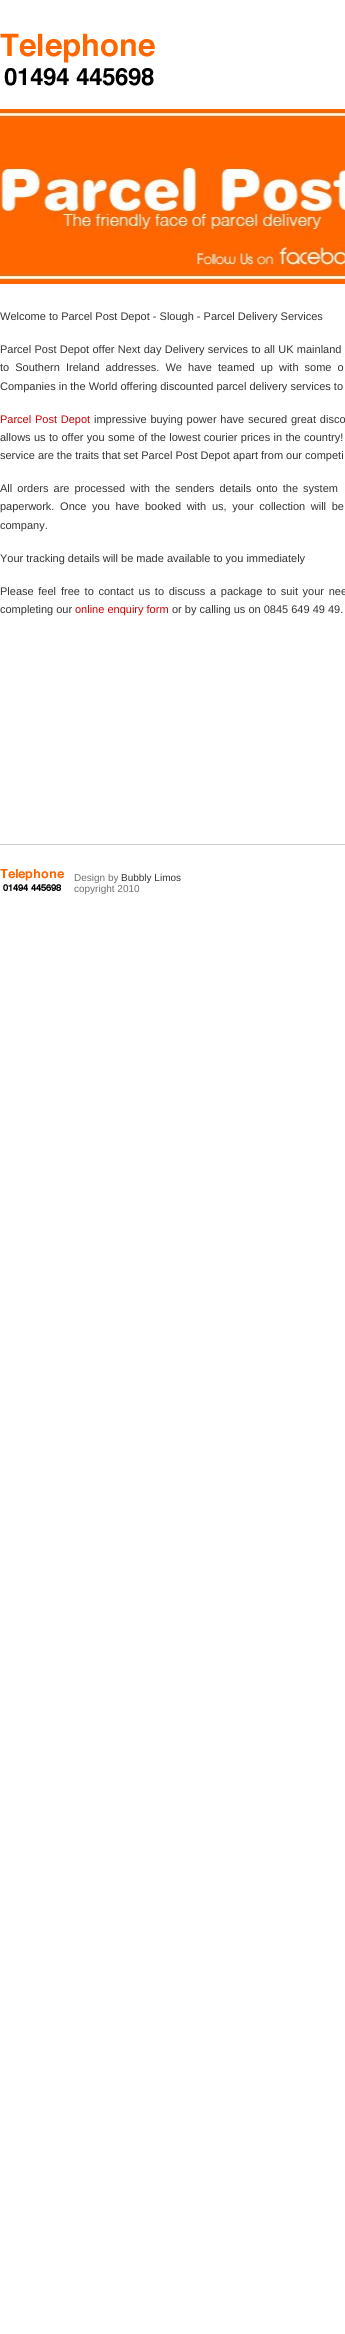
import math
import cairo


def use_color(cr, r, g, b):
  cr.set_source_rgb(r / 255, g / 255, b / 255)

def text(cr, x, y, s, family, size, color, bold=False, italic=False):
  cr.select_font_face(family, cairo.FONT_SLANT_ITALIC if italic else cairo.FONT_SLANT_NORMAL, cairo.FONT_WEIGHT_BOLD if bold else cairo.FONT_WEIGHT_NORMAL)
  cr.set_font_size(size)
  use_color(cr, *color)
  cr.move_to(x, y)
  cr.show_text(s)

def spaced_text(cr, x, y, s, letter, word):
  cr.move_to(x, y)
  for ch in s:
    cr.show_text(ch)
    cr.rel_move_to(letter + word * (ch == ' '), 0)

def box(cr, x, y, w, h, *color):
  use_color(cr, *color)
  cr.rectangle(x, y, w, h)
  cr.fill()

def picture(cr, path, x, y, w, h):
  cr.save()
  cr.set_source_surface(cairo.ImageSurface.create_from_png(path), x, y)
  cr.rectangle(x, y, w, h)
  cr.fill()
  cr.restore()

def draw(cr):
  use_color(cr, 255, 255, 255)
  cr.paint()
  picture(cr, "img_01.png", 0, 109, 345, 175)
  picture(cr, "img_02.png", 0, 33, 155, 53)
  box(cr, 0, 844, 345, 1, 204, 204, 204)
  picture(cr, "img_03.png", 0, 869, 64, 22)
  text(cr, 0, 320, "Welcome to Parcel Post Depot - Slough - Parcel Delivery Services", "Liberation Sans", 11, (51, 51, 51))
  spaced_text(cr, 0, 353, "Parcel Post Depot offer Next day Delivery services to all UK mainland", 0, 0.25)
  spaced_text(cr, 0, 371, "to Southern Ireland addresses. We have teamed up with some o", 0, 3)
  text(cr, 0, 390, "Companies in the World offering discounted parcel delivery services to", "Liberation Sans", 11, (51, 51, 51))
  use_color(cr, 204, 0, 0)
  spaced_text(cr, 0, 423, "Parcel Post Depot", 0, 0.75)
  use_color(cr, 51, 51, 51)
  spaced_text(cr, 94, 423, "impressive buying power have secured great disco", 0, 0.75)
  spaced_text(cr, 0, 441, "allows us to offer you some of the lowest courier prices in the country!", 0, 0.3)
  text(cr, 0, 459, "service are the traits that set Parcel Post Depot apart from our competi", "Liberation Sans", 11, (51, 51, 51))
  spaced_text(cr, 0, 492, "All orders are processed with the senders details onto the system", 0, 2)
  spaced_text(cr, 0, 510, "paperwork. Once you have booked with us, your collection will be", 0, 2.6)
  text(cr, 0, 529, "company.", "Liberation Sans", 11, (51, 51, 51))
  text(cr, 0, 562, "Your tracking details will be made available to you immediately", "Liberation Sans", 11, (51, 51, 51))
  spaced_text(cr, 0, 595, "Please feel", 0, 1.6)
  spaced_text(cr, 61, 595, "free to contact us to discuss a package to suit your nee", 0, 1.6)
  text(cr, 0, 613, "completing our", "Liberation Sans", 11, (51, 51, 51))
  text(cr, 75, 613, "online enquiry form", "Liberation Sans", 11, (204, 0, 0))
  text(cr, 172, 613, "or by calling us on 0845 649 49 49.", "Liberation Sans", 11, (51, 51, 51))
  text(cr, 74, 881, "Design by", "Liberation Sans", 10, (112, 112, 112))
  text(cr, 121, 881, "Bubbly Limos", "Liberation Sans", 10, (51, 51, 51))
  text(cr, 74, 892, "copyright 2010", "Liberation Sans", 10, (112, 112, 112))


surface = cairo.ImageSurface(cairo.FORMAT_RGB24, 345, 2334)
cr = cairo.Context(surface)
options = cairo.FontOptions()
options.set_hint_metrics(cairo.HINT_METRICS_OFF)
options.set_hint_style(cairo.HINT_STYLE_NONE)
cr.set_font_options(options)
cr.set_miter_limit(4)
draw(cr)
surface.write_to_png("out.png")
